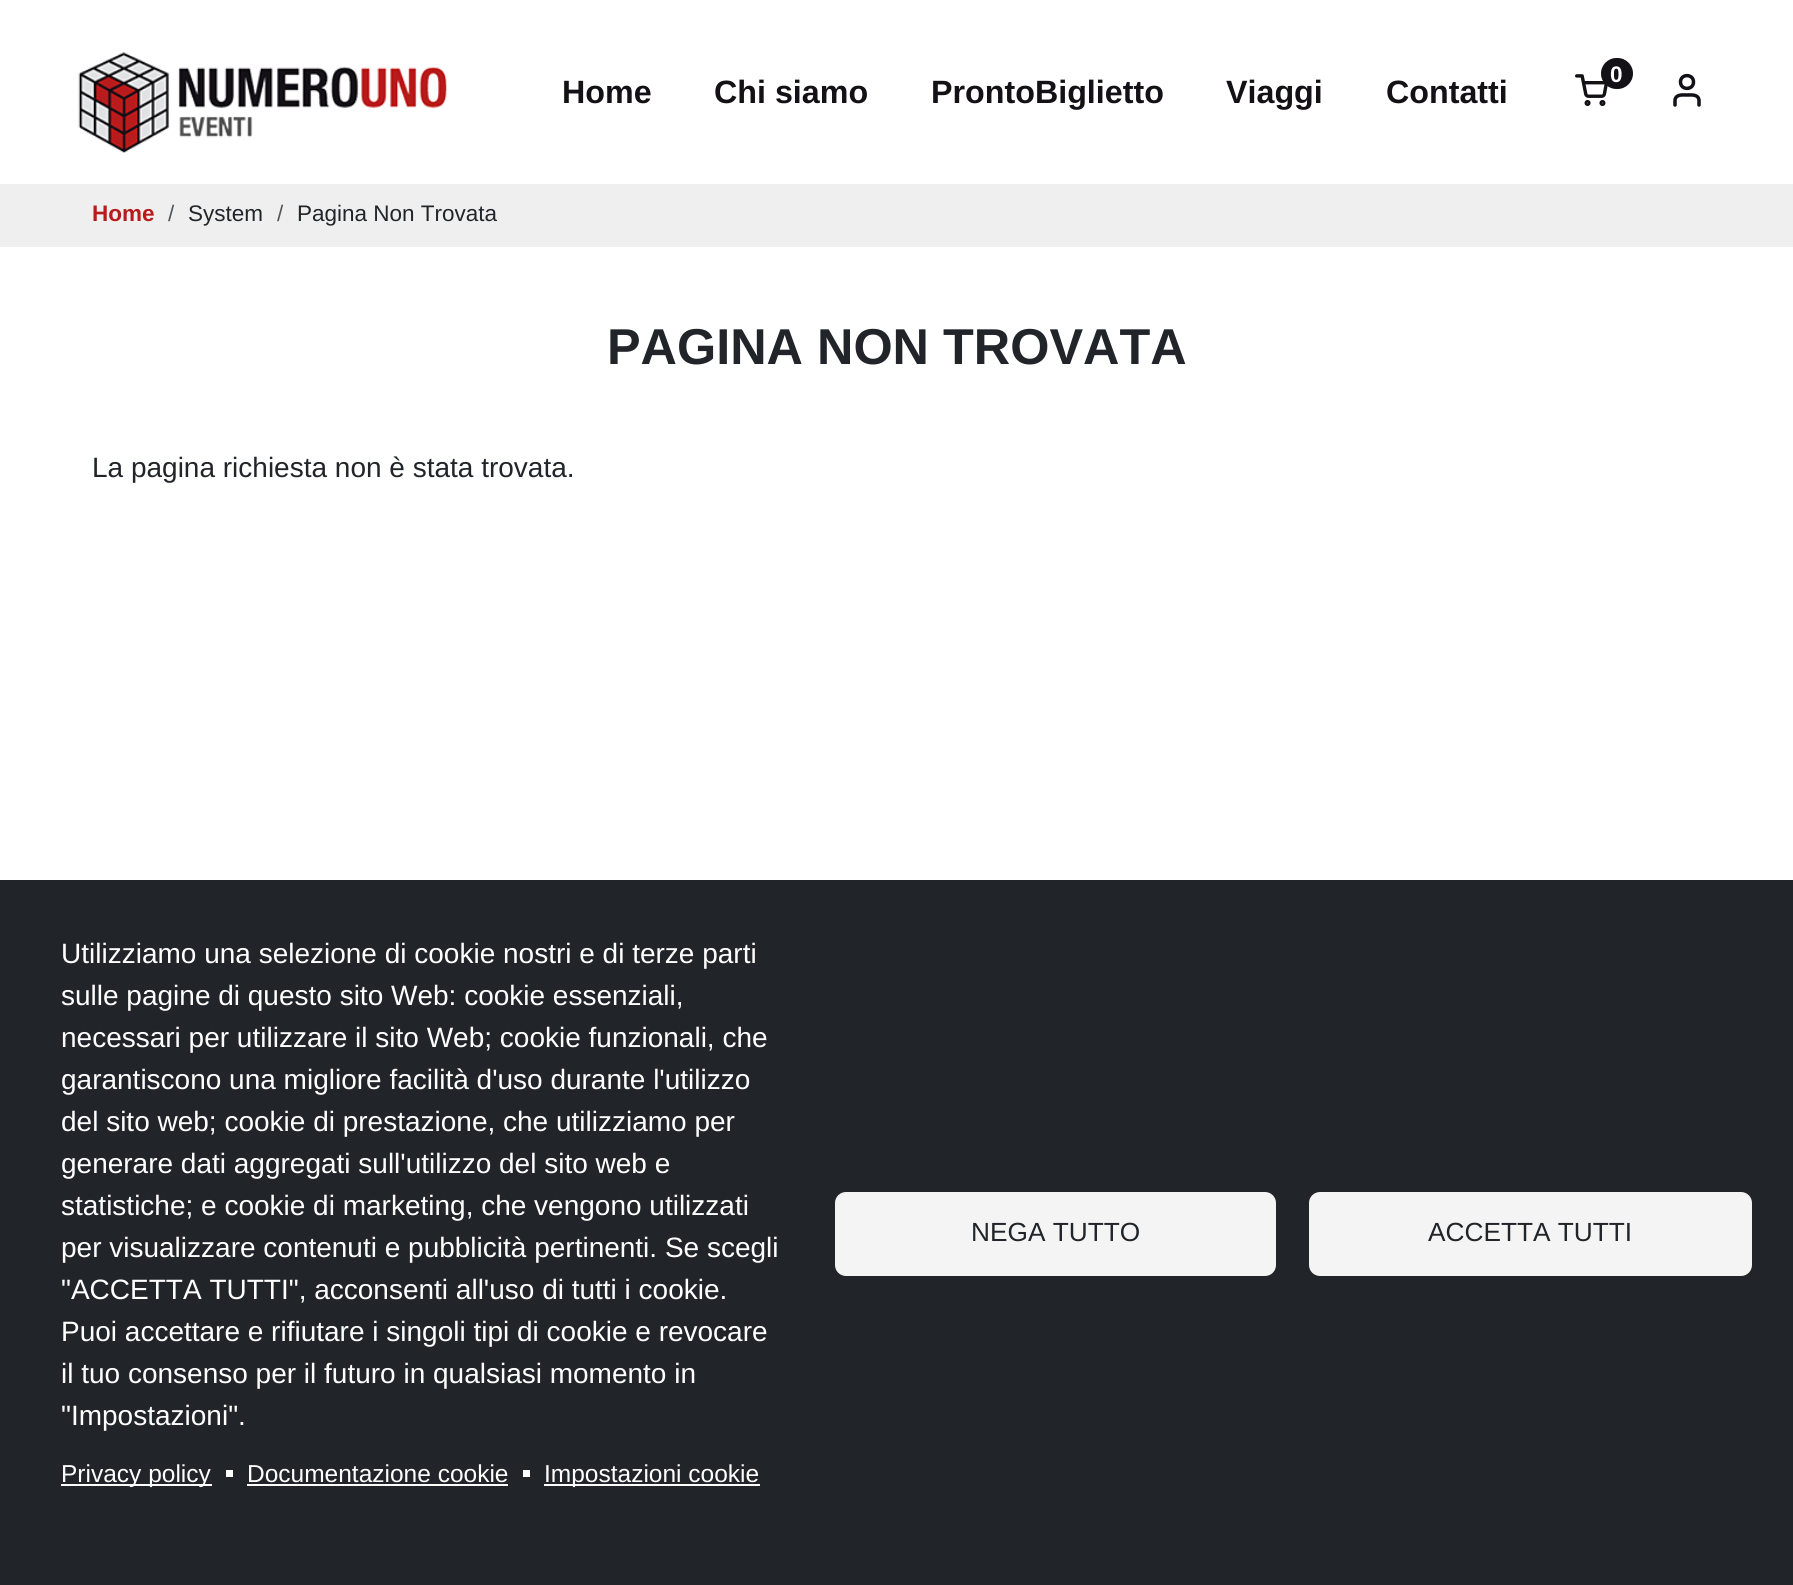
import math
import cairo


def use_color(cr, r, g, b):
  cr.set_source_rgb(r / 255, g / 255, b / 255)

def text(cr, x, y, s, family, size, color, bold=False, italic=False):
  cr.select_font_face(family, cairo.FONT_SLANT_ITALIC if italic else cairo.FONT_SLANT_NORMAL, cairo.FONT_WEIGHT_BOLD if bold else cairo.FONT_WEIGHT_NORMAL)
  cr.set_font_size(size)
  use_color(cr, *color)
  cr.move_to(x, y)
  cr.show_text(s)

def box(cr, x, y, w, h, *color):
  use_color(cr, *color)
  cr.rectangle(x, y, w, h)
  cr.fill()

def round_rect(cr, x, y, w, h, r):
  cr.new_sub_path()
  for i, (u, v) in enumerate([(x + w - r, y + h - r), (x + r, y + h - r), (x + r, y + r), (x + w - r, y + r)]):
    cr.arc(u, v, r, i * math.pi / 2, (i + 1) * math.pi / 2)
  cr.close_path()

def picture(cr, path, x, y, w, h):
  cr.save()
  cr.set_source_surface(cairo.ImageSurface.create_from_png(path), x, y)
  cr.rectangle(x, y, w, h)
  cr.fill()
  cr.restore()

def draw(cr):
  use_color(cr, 255, 255, 255)
  cr.paint()
  picture(cr, "img_01.png", 78, 52, 369, 101)
  picture(cr, "img_02.png", 1575, 74, 33, 32)
  use_color(cr, 19, 16, 22)
  round_rect(cr, 1601, 58, 32, 31, 15.5)
  cr.fill()
  cr.new_path()
  cr.move_to(1699, 105)
  cr.line_to(1699, 100)
  cr.curve_to(1698, 94, 1691.5, 95, 1687, 95)
  cr.curve_to(1682.5, 95, 1676, 94, 1675, 100)
  cr.line_to(1675, 105)
  cr.move_to(1693.5, 82)
  cr.curve_to(1693.5, 90.5, 1680.5, 90.5, 1680.5, 82)
  cr.curve_to(1680.5, 73.5, 1693.5, 73.5, 1693.5, 82)
  cr.close_path()
  use_color(cr, 18, 17, 23)
  cr.set_line_width(3.5)
  cr.set_line_cap(cairo.LINE_CAP_ROUND)
  cr.set_line_join(cairo.LINE_JOIN_ROUND)
  cr.stroke()
  box(cr, 0, 184, 1793, 63, 239, 239, 239)
  box(cr, 0, 880, 1793, 705, 33, 37, 41)
  box(cr, 61, 1484, 151, 2, 255, 255, 255)
  box(cr, 226, 1470, 7, 7, 255, 255, 255)
  box(cr, 247, 1484, 261, 2, 255, 255, 255)
  box(cr, 523, 1470, 7, 7, 255, 255, 255)
  box(cr, 544, 1484, 216, 2, 255, 255, 255)
  use_color(cr, 244, 244, 244)
  round_rect(cr, 837, 1194, 437, 80, 9)
  cr.fill_preserve()
  cr.set_line_width(4)
  cr.set_line_cap(cairo.LINE_CAP_BUTT)
  cr.set_line_join(cairo.LINE_JOIN_MITER)
  cr.stroke()
  round_rect(cr, 1311, 1194, 439, 80, 9)
  cr.fill_preserve()
  cr.stroke()
  text(cr, 562, 103, "Home", "Liberation Sans", 32.25, (19, 16, 22), bold=True)
  text(cr, 714, 103, "Chi siamo", "Liberation Sans", 32.25, (19, 16, 22), bold=True)
  text(cr, 931, 103, "ProntoBiglietto", "Liberation Sans", 32.25, (19, 16, 22), bold=True)
  text(cr, 1226, 103, "Viaggi", "Liberation Sans", 32.25, (19, 16, 22), bold=True)
  text(cr, 1386, 103, "Contatti", "Liberation Sans", 32.25, (19, 16, 22), bold=True)
  text(cr, 1610, 82, "0", "Liberation Sans", 22.5, (255, 255, 255), bold=True)
  text(cr, 92, 221, "Home", "Liberation Sans", 22.5, (184, 27, 27), bold=True)
  text(cr, 168, 221, "/", "Liberation Sans", 22.5, (85, 88, 91))
  text(cr, 188, 221, "System", "Liberation Sans", 22.5, (33, 37, 41))
  text(cr, 277, 221, "/", "Liberation Sans", 22.5, (85, 88, 91))
  text(cr, 297, 221, "Pagina Non Trovata", "Liberation Sans", 22.5, (33, 37, 41))
  text(cr, 607, 364, "PAGINA NON TROVATA", "Liberation Sans", 50.4, (33, 37, 41), bold=True)
  text(cr, 92, 477, "La pagina richiesta non è stata trovata.", "Liberation Sans", 28, (33, 37, 41))
  text(cr, 61, 963, "Utilizziamo una selezione di cookie nostri e di terze parti", "Liberation Sans", 28, (255, 255, 255))
  text(cr, 61, 1005, "sulle pagine di questo sito Web: cookie essenziali,", "Liberation Sans", 28, (255, 255, 255))
  text(cr, 61, 1047, "necessari per utilizzare il sito Web; cookie funzionali, che", "Liberation Sans", 28, (255, 255, 255))
  text(cr, 61, 1089, "garantiscono una migliore facilità d'uso durante l'utilizzo", "Liberation Sans", 28, (255, 255, 255))
  text(cr, 61, 1131, "del sito web; cookie di prestazione, che utilizziamo per", "Liberation Sans", 28, (255, 255, 255))
  text(cr, 61, 1173, "generare dati aggregati sull'utilizzo del sito web e", "Liberation Sans", 28, (255, 255, 255))
  text(cr, 61, 1215, "statistiche; e cookie di marketing, che vengono utilizzati", "Liberation Sans", 28, (255, 255, 255))
  text(cr, 61, 1257, "per visualizzare contenuti e pubblicità pertinenti. Se scegli", "Liberation Sans", 28, (255, 255, 255))
  text(cr, 61, 1299, "\"ACCETTA TUTTI\", acconsenti all'uso di tutti i cookie.", "Liberation Sans", 28, (255, 255, 255))
  text(cr, 61, 1341, "Puoi accettare e rifiutare i singoli tipi di cookie e revocare", "Liberation Sans", 28, (255, 255, 255))
  text(cr, 61, 1383, "il tuo consenso per il futuro in qualsiasi momento in", "Liberation Sans", 28, (255, 255, 255))
  text(cr, 61, 1425, "\"Impostazioni\".", "Liberation Sans", 28, (255, 255, 255))
  text(cr, 61, 1482, "Privacy policy", "Liberation Sans", 24.5, (255, 255, 255))
  text(cr, 247, 1482, "Documentazione cookie", "Liberation Sans", 24.5, (255, 255, 255))
  text(cr, 544, 1482, "Impostazioni cookie", "Liberation Sans", 24.5, (255, 255, 255))
  text(cr, 971, 1241, "NEGA TUTTO", "Liberation Sans", 26.25, (33, 37, 41))
  text(cr, 1428, 1241, "ACCETTA TUTTI", "Liberation Sans", 26.25, (33, 37, 41))


surface = cairo.ImageSurface(cairo.FORMAT_RGB24, 1793, 1585)
cr = cairo.Context(surface)
options = cairo.FontOptions()
options.set_hint_metrics(cairo.HINT_METRICS_OFF)
options.set_hint_style(cairo.HINT_STYLE_NONE)
cr.set_font_options(options)
cr.set_miter_limit(4)
draw(cr)
surface.write_to_png("out.png")
